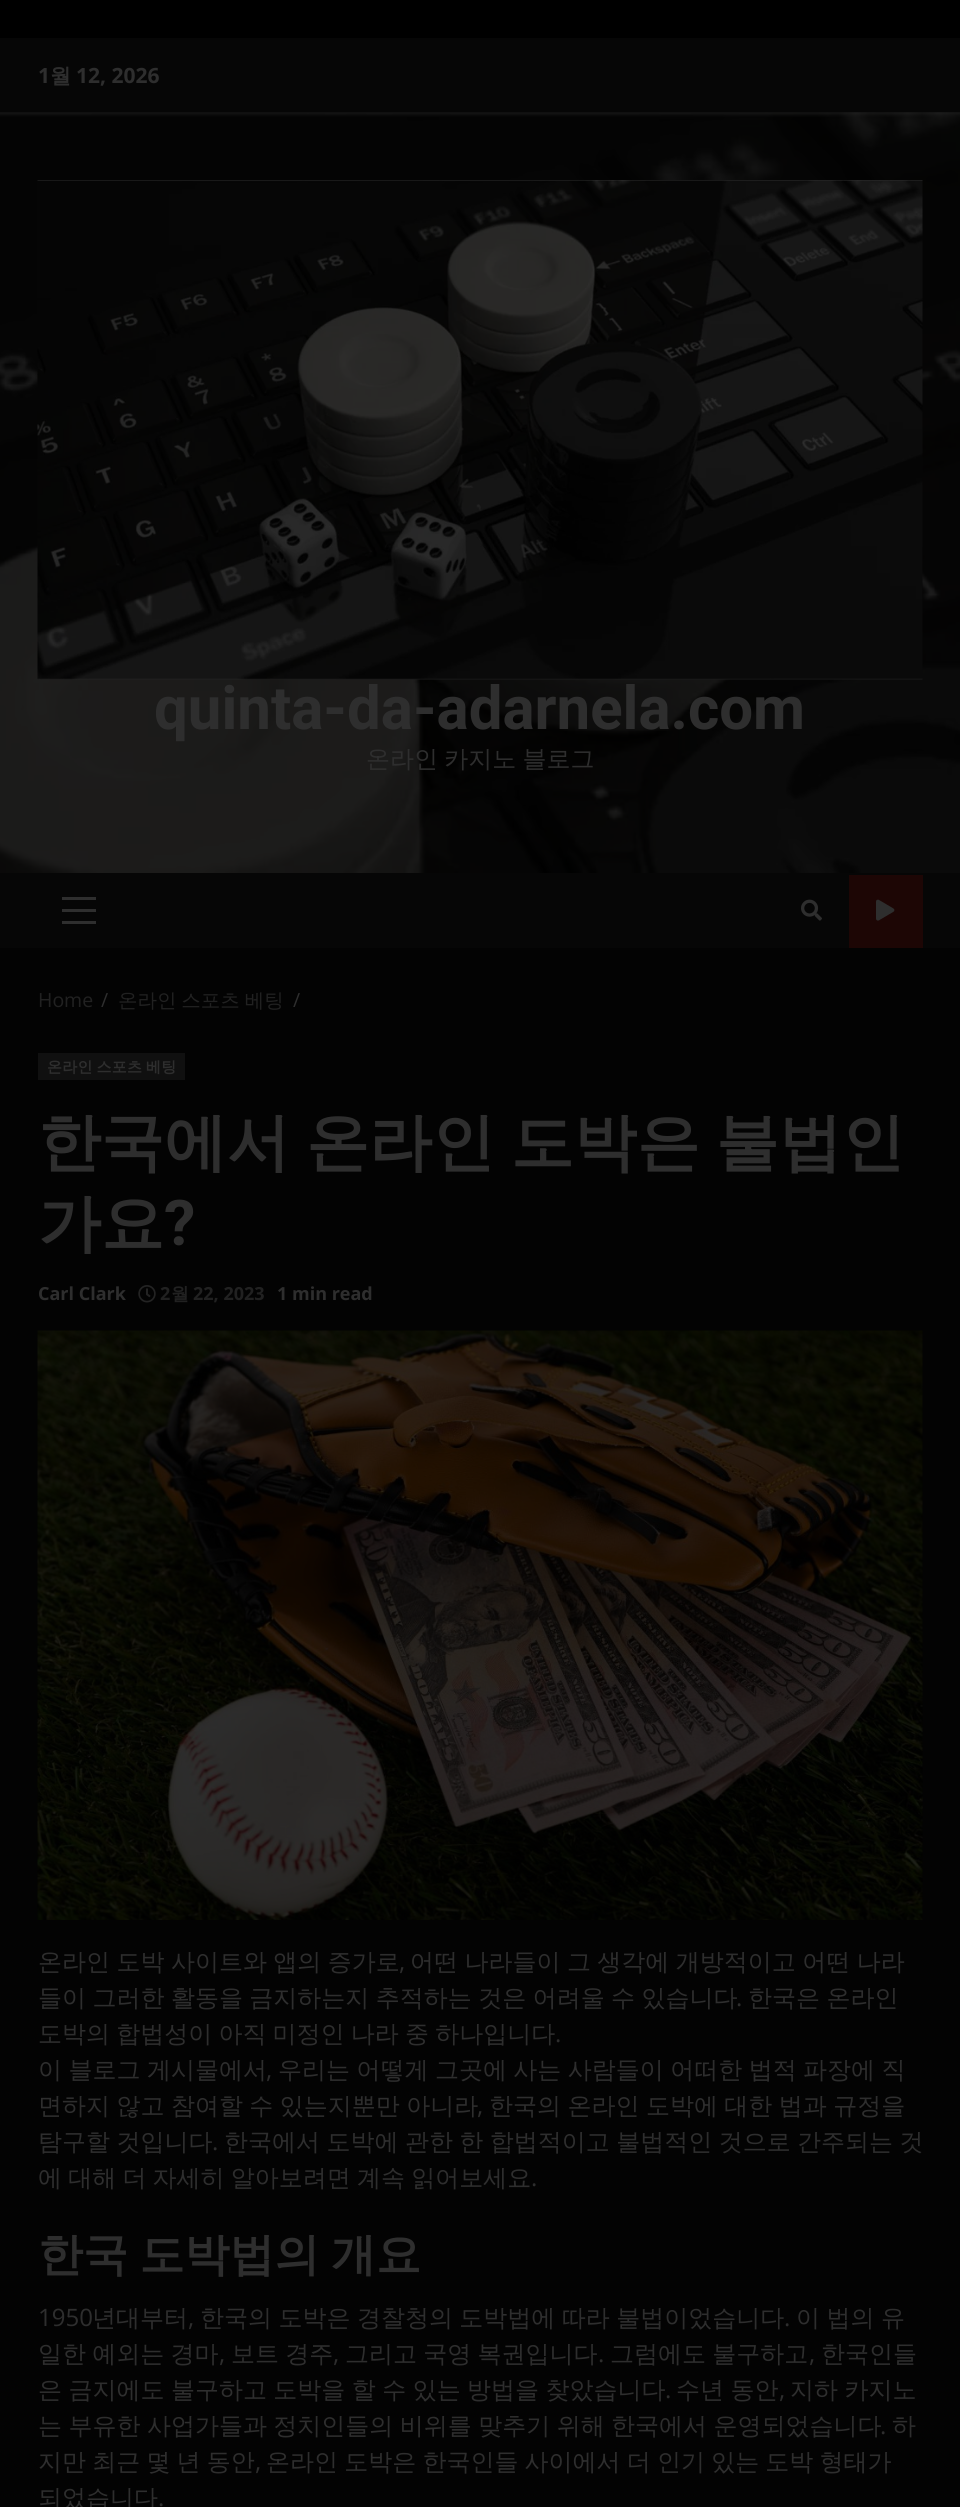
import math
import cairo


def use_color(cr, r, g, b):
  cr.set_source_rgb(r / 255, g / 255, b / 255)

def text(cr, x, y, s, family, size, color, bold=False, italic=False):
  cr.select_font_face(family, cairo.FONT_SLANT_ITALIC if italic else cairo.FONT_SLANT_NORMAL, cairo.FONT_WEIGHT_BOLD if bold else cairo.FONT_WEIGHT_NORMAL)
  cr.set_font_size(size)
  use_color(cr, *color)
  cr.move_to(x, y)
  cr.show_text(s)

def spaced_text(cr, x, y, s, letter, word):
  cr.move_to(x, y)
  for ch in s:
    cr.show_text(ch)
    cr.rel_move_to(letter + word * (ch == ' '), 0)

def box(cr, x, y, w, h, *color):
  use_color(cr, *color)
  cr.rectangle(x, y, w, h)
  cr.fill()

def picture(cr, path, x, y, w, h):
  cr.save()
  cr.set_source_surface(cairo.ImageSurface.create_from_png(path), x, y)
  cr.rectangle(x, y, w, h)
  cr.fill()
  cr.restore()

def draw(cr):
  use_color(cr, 0, 0, 0)
  cr.paint()
  box(cr, 0, 948, 960, 1559, 3, 3, 3)
  box(cr, 0, 38, 960, 75, 6, 6, 6)
  picture(cr, "img_01.png", 0, 112, 960, 761)
  picture(cr, "img_02.png", 37, 180, 886, 500)
  box(cr, 0, 873, 960, 75, 6, 6, 6)
  box(cr, 62, 909, 34, 3, 46, 46, 46)
  box(cr, 62, 897, 34, 3, 46, 46, 46)
  box(cr, 62, 921, 34, 3, 46, 46, 46)
  picture(cr, "img_03.png", 801, 899, 21, 22)
  box(cr, 849, 875, 74, 73, 29, 6, 5)
  picture(cr, "img_04.png", 876, 899, 19, 22)
  box(cr, 38, 1053, 147, 27, 16, 16, 16)
  picture(cr, "img_05.png", 138, 1285, 18, 18)
  picture(cr, "img_06.png", 37, 1330, 886, 590)
  text(cr, 38, 83, "1", "Open Sans", 21, (46, 46, 46), bold=True)
  text(cr, 50, 83, "월", "WenQuanYi Zen Hei", 21, (46, 46, 46), bold=True)
  text(cr, 76, 83, "12, 2026", "Open Sans", 21, (46, 46, 46), bold=True)
  text(cr, 154, 729, "quinta-da-adarnela.com", "Roboto", 60, (46, 46, 46), bold=True)
  cr.select_font_face("WenQuanYi Zen Hei Medium")
  cr.set_font_size(24)
  spaced_text(cr, 366, 767, "온라인 카지노 블로그", 0, -1)
  text(cr, 38, 1007, "Home", "Open Sans", 19.5, (33, 33, 33))
  text(cr, 101, 1007, "/", "Open Sans", 19.5, (46, 46, 46))
  cr.select_font_face("WenQuanYi Zen Hei Medium")
  use_color(cr, 33, 33, 33)
  spaced_text(cr, 118, 1007, "온라인 스포츠 베팅", 0, -1)
  text(cr, 293, 1007, "/", "Open Sans", 19.5, (46, 46, 46))
  cr.select_font_face("WenQuanYi Zen Hei", cairo.FONT_SLANT_NORMAL, cairo.FONT_WEIGHT_BOLD)
  cr.set_font_size(15)
  spaced_text(cr, 47, 1072, "온라인 스포츠 베팅", 0.25, -1)
  cr.set_font_size(63)
  spaced_text(cr, 38, 1164, "한국에서 온라인 도박은 불법인", 0, -3)
  text(cr, 38, 1245, "가요", "WenQuanYi Zen Hei", 63, (46, 46, 46), bold=True)
  text(cr, 164, 1245, "?", "Roboto", 63, (46, 46, 46), bold=True)
  text(cr, 38, 1300, "Carl Clark", "Open Sans", 18, (46, 46, 46), bold=True)
  text(cr, 160, 1300, "2", "Open Sans", 18, (33, 33, 33), bold=True)
  text(cr, 171, 1300, "월", "WenQuanYi Zen Hei", 18, (33, 33, 33), bold=True)
  text(cr, 193, 1300, "22, 2023", "Open Sans", 18, (33, 33, 33), bold=True)
  text(cr, 277, 1300, "1 min read", "Open Sans", 18, (46, 46, 46), bold=True)
  cr.select_font_face("WenQuanYi Zen Hei Medium")
  cr.set_font_size(24)
  spaced_text(cr, 38, 1970, "온라인 도박 사이트와 앱의 증가로", 0, -0.75)
  text(cr, 399, 1970, ",", "Open Sans", 24, (46, 46, 46))
  cr.select_font_face("WenQuanYi Zen Hei Medium")
  spaced_text(cr, 410, 1970, "어떤 나라들이 그 생각에 개방적이고 어떤 나라", 0, -0.75)
  spaced_text(cr, 38, 2006, "들이 그러한 활동을 금지하는지 추적하는 것은 어려울 수 있습니다", 0, -0.75)
  text(cr, 736, 2006, ".", "Open Sans", 24, (46, 46, 46))
  cr.select_font_face("WenQuanYi Zen Hei Medium")
  spaced_text(cr, 748, 2006, "한국은 온라인", 0, -0.75)
  spaced_text(cr, 38, 2042, "도박의 합법성이 아직 미정인 나라 중 하나입니다", 0, -1)
  text(cr, 555, 2042, ".", "Open Sans", 24, (46, 46, 46))
  cr.select_font_face("WenQuanYi Zen Hei Medium")
  spaced_text(cr, 38, 2078, "이 블로그 게시물에서", 0, -0.75)
  text(cr, 266, 2078, ",", "Open Sans", 24, (46, 46, 46))
  cr.select_font_face("WenQuanYi Zen Hei Medium")
  spaced_text(cr, 278, 2078, "우리는 어떻게 그곳에 사는 사람들이 어떠한 법적 파장에 직", 0, -0.75)
  spaced_text(cr, 38, 2114, "면하지 않고 참여할 수 있는지뿐만 아니라", 0, -0.75)
  text(cr, 477, 2114, ",", "Open Sans", 24, (46, 46, 46))
  cr.select_font_face("WenQuanYi Zen Hei Medium")
  spaced_text(cr, 489, 2114, "한국의 온라인 도박에 대한 법과 규정을", 0, -0.75)
  spaced_text(cr, 38, 2150, "탐구할 것입니다", 0, -0.75)
  text(cr, 212, 2150, ".", "Open Sans", 24, (46, 46, 46))
  cr.select_font_face("WenQuanYi Zen Hei Medium")
  spaced_text(cr, 224, 2150, "한국에서 도박에 관한 한 합법적이고 불법적인 것으로 간주되는 것", 0, -0.75)
  spaced_text(cr, 38, 2186, "에 대해 더 자세히 알아보려면 계속 읽어보세요", 0, -1)
  text(cr, 531, 2186, ".", "Open Sans", 24, (46, 46, 46))
  cr.select_font_face("WenQuanYi Zen Hei", cairo.FONT_SLANT_NORMAL, cairo.FONT_WEIGHT_BOLD)
  cr.set_font_size(45)
  spaced_text(cr, 38, 2270, "한국 도박법의 개요", 0, -2)
  text(cr, 38, 2326, "1950", "Open Sans", 24, (46, 46, 46))
  text(cr, 92, 2326, "년대부터", "WenQuanYi Zen Hei Medium", 24, (46, 46, 46))
  text(cr, 188, 2326, ",", "Open Sans", 24, (46, 46, 46))
  cr.select_font_face("WenQuanYi Zen Hei Medium")
  spaced_text(cr, 200, 2326, "한국의 도박은 경찰청의 도박법에 따라 불법이었습니다", 0, -0.75)
  text(cr, 784, 2326, ".", "Open Sans", 24, (46, 46, 46))
  cr.select_font_face("WenQuanYi Zen Hei Medium")
  spaced_text(cr, 796, 2326, "이 법의 유", 0, -0.75)
  spaced_text(cr, 38, 2362, "일한 예외는 경마", 0, -1)
  text(cr, 219, 2362, ",", "Open Sans", 24, (46, 46, 46))
  cr.select_font_face("WenQuanYi Zen Hei Medium")
  spaced_text(cr, 231, 2362, "보트 경주", 0, -1)
  text(cr, 333, 2362, ",", "Open Sans", 24, (46, 46, 46))
  cr.select_font_face("WenQuanYi Zen Hei Medium")
  spaced_text(cr, 345, 2362, "그리고 국영 복권입니다", 0, -1)
  text(cr, 598, 2362, ".", "Open Sans", 24, (46, 46, 46))
  cr.select_font_face("WenQuanYi Zen Hei Medium")
  spaced_text(cr, 610, 2362, "그럼에도 불구하고", 0, -1)
  text(cr, 809, 2362, ",", "Open Sans", 24, (46, 46, 46))
  text(cr, 821, 2362, "한국인들", "WenQuanYi Zen Hei Medium", 24, (46, 46, 46))
  spaced_text(cr, 38, 2398, "은 금지에도 불구하고 도박을 할 수 있는 방법을 찾았습니다", 0, -0.75)
  text(cr, 665, 2398, ".", "Open Sans", 24, (46, 46, 46))
  cr.select_font_face("WenQuanYi Zen Hei Medium")
  spaced_text(cr, 676, 2398, "수년 동안", 0, -0.75)
  text(cr, 779, 2398, ",", "Open Sans", 24, (46, 46, 46))
  cr.select_font_face("WenQuanYi Zen Hei Medium")
  spaced_text(cr, 790, 2398, "지하 카지노", 0, -0.75)
  spaced_text(cr, 38, 2434, "는 부유한 사업가들과 정치인들의 비위를 맞추기 위해 한국에서 운영되었습니다", 0, -0.75)
  text(cr, 880, 2434, ".", "Open Sans", 24, (46, 46, 46))
  text(cr, 892, 2434, "하", "WenQuanYi Zen Hei Medium", 24, (46, 46, 46))
  spaced_text(cr, 38, 2470, "지만 최근 몇 년 동안", 0, -1)
  text(cr, 255, 2470, ",", "Open Sans", 24, (46, 46, 46))
  cr.select_font_face("WenQuanYi Zen Hei Medium")
  spaced_text(cr, 266, 2470, "온라인 도박은 한국인들 사이에서 더 인기 있는 도박 형태가", 0, -1)
  text(cr, 38, 2506, "되었습니다", "WenQuanYi Zen Hei Medium", 24, (46, 46, 46))
  text(cr, 158, 2506, ".", "Open Sans", 24, (46, 46, 46))


surface = cairo.ImageSurface(cairo.FORMAT_RGB24, 960, 2507)
cr = cairo.Context(surface)
options = cairo.FontOptions()
options.set_hint_metrics(cairo.HINT_METRICS_OFF)
options.set_hint_style(cairo.HINT_STYLE_NONE)
cr.set_font_options(options)
cr.set_miter_limit(4)
draw(cr)
surface.write_to_png("out.png")
